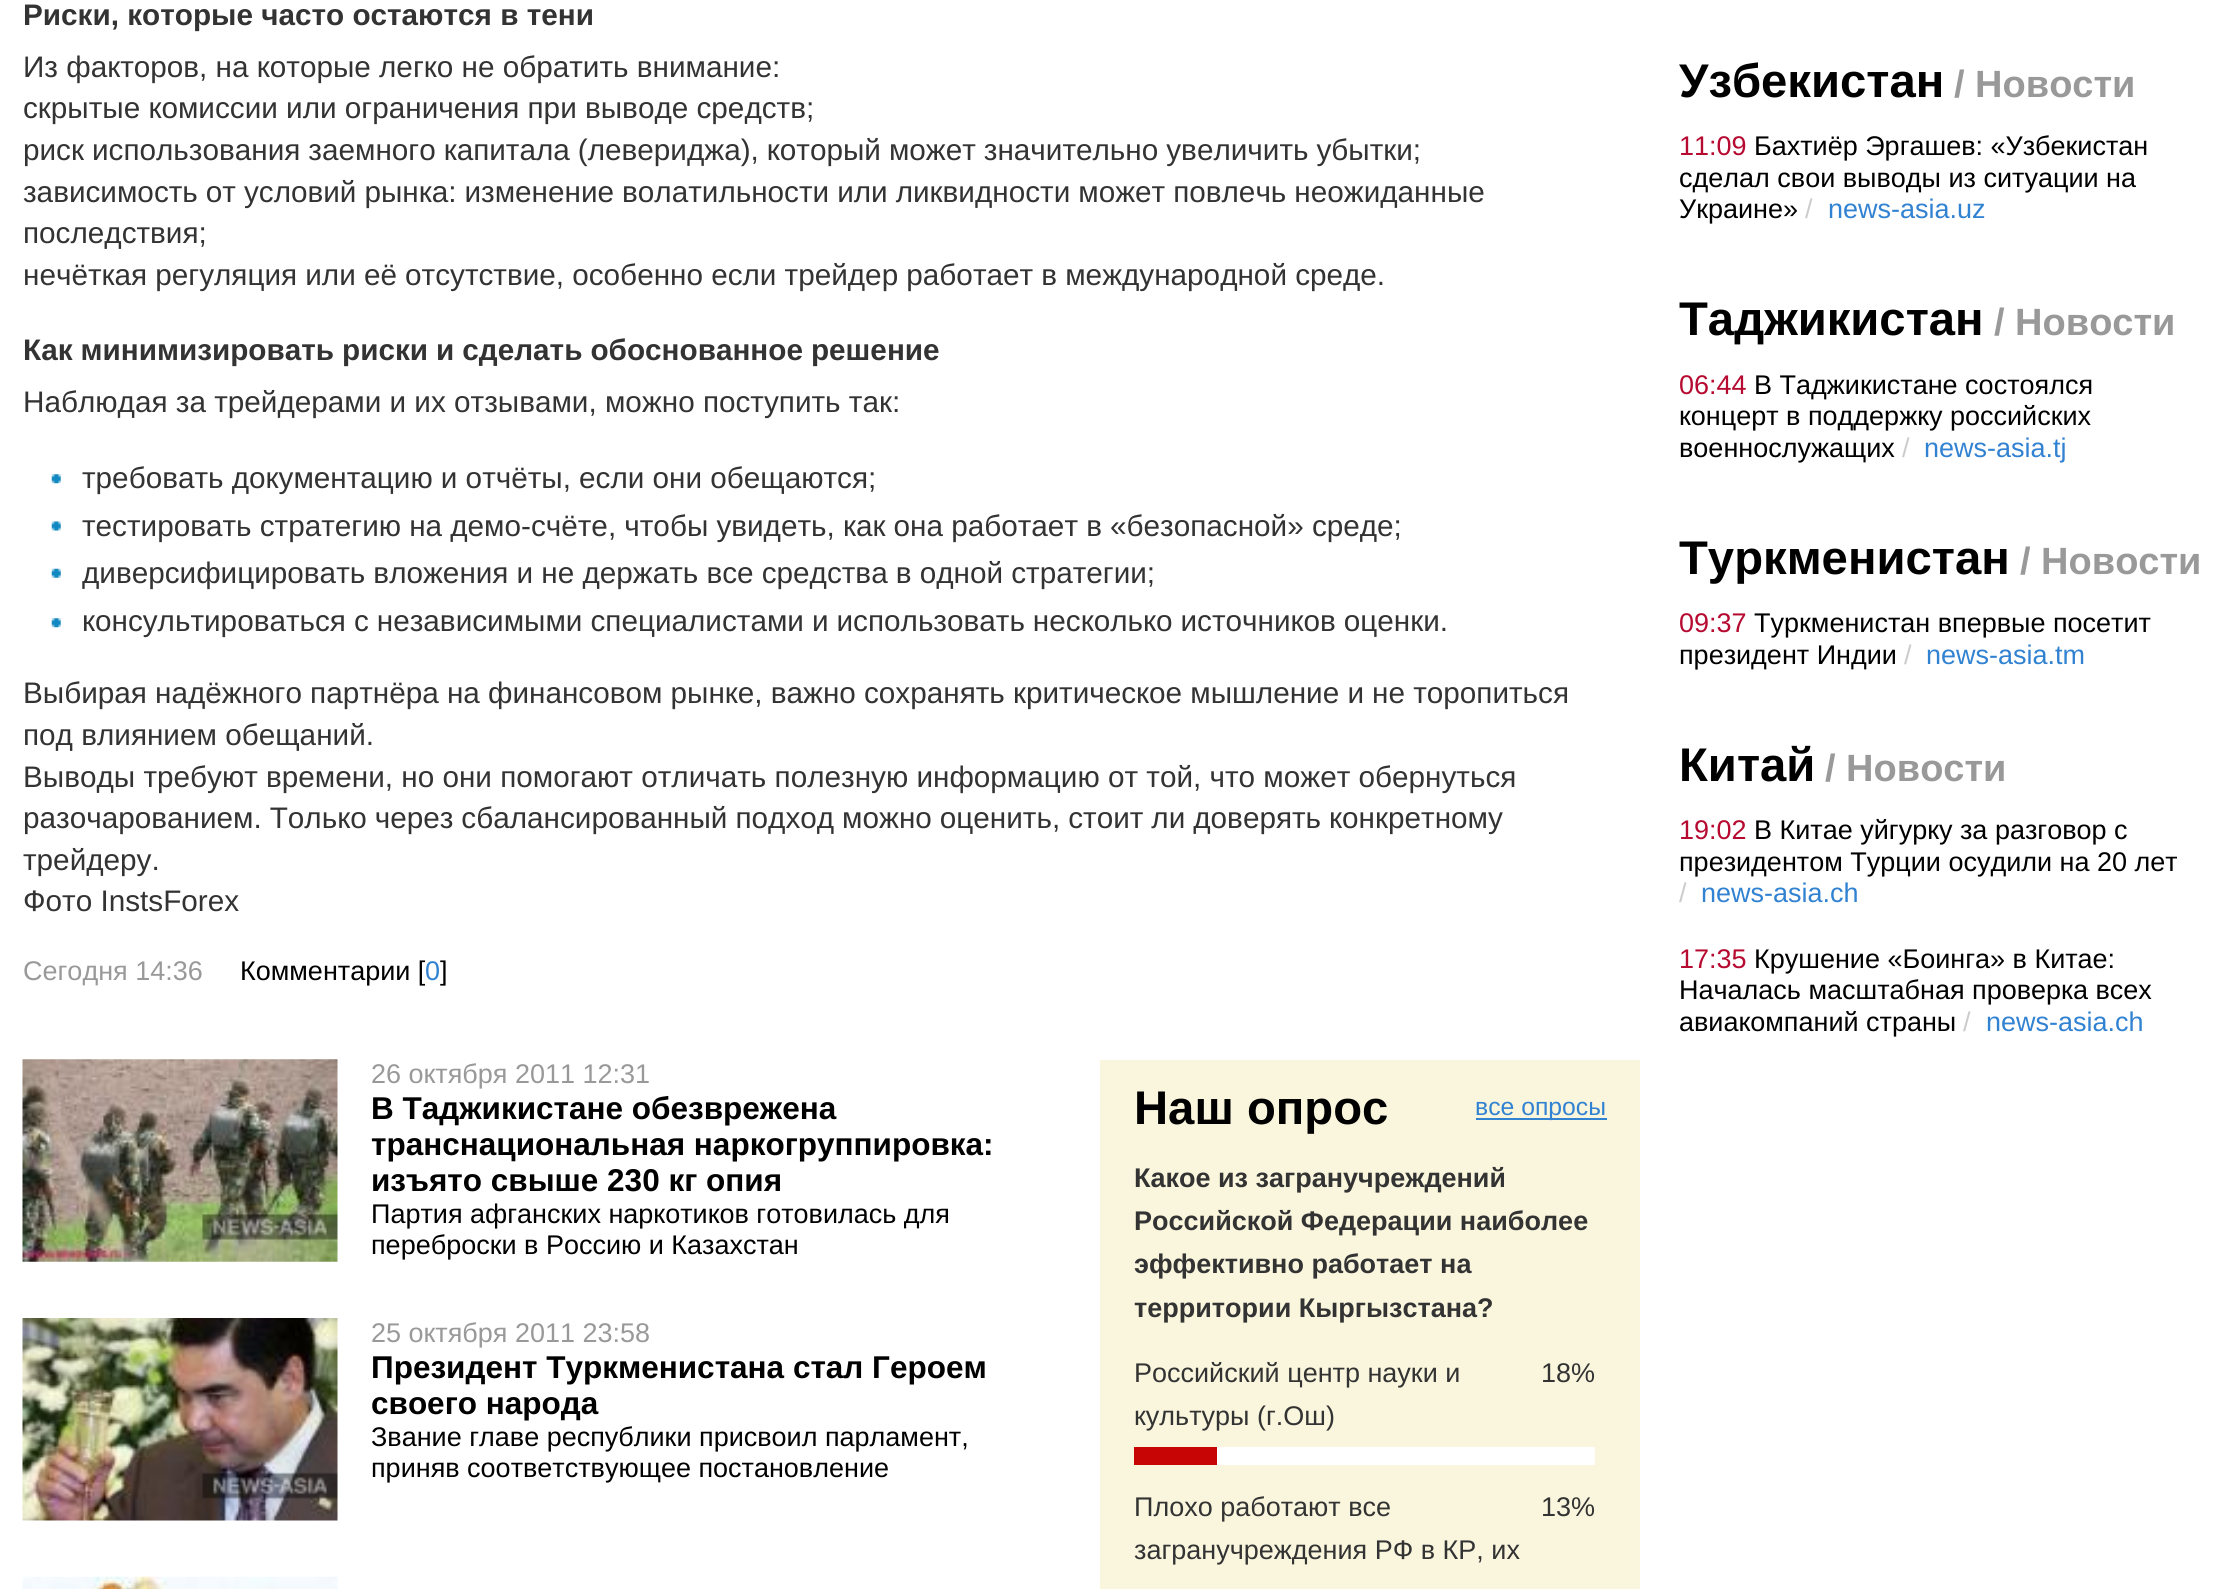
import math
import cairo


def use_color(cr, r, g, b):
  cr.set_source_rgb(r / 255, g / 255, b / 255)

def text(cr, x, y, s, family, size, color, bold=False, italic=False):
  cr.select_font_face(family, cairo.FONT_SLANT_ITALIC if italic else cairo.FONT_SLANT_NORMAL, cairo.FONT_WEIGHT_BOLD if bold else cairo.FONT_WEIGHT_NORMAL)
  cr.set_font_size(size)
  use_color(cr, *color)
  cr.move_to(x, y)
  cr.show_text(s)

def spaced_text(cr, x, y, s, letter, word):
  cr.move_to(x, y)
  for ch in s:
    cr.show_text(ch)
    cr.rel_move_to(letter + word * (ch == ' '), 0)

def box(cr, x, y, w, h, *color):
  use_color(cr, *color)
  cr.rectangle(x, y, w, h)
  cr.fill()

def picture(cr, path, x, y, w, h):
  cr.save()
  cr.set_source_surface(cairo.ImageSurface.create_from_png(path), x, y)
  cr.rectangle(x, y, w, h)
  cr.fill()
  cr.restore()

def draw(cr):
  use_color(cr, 255, 255, 255)
  cr.paint()
  picture(cr, "img_01.png", 51, 474, 10, 10)
  picture(cr, "img_02.png", 51, 521, 10, 10)
  picture(cr, "img_03.png", 51, 568, 10, 10)
  picture(cr, "img_01.png", 51, 618, 10, 10)
  picture(cr, "img_04.png", 22, 1059, 316, 203)
  picture(cr, "img_05.png", 22, 1318, 316, 203)
  picture(cr, "img_06.png", 22, 1576, 316, 13)
  box(cr, 1100, 1060, 540, 529, 249, 246, 221)
  box(cr, 1476, 1118, 131, 2, 50, 130, 210)
  box(cr, 1217, 1447, 378, 18, 255, 255, 255)
  box(cr, 1134, 1447, 83, 18, 199, 5, 5)
  text(cr, 23, 25, "Риски, которые часто остаются в тени", "Liberation Sans", 29.7, (51, 51, 51), bold=True)
  text(cr, 23, 77, "Из факторов, на которые легко не обратить внимание:", "Liberation Sans", 29.7, (51, 51, 51))
  text(cr, 23, 118, "скрытые комиссии или ограничения при выводе средств;", "Liberation Sans", 29.7, (51, 51, 51))
  spaced_text(cr, 23, 160, "риск использования заемного капитала (левериджа), который может значительно увеличить убытки;", 0, -0.25)
  spaced_text(cr, 23, 202, "зависимость от условий рынка: изменение волатильности или ликвидности может повлечь неожиданные", 0, -0.25)
  text(cr, 23, 243, "последствия;", "Liberation Sans", 29.7, (51, 51, 51))
  spaced_text(cr, 23, 285, "нечёткая регуляция или её отсутствие, особенно если трейдер работает в международной среде.", 0, -0.1)
  cr.select_font_face("Liberation Sans", cairo.FONT_SLANT_NORMAL, cairo.FONT_WEIGHT_BOLD)
  spaced_text(cr, 23, 360, "Как минимизировать риски и сделать обоснованное решение", 0, -0.25)
  text(cr, 23, 412, "Наблюдая за трейдерами и их отзывами, можно поступить так:", "Liberation Sans", 29.7, (51, 51, 51))
  spaced_text(cr, 82, 488, "требовать документацию и отчёты, если они обещаются;", 0, -0.1)
  spaced_text(cr, 82, 536, "тестировать стратегию на демо-счёте, чтобы увидеть, как она работает в «безопасной» среде;", 0, -0.1)
  spaced_text(cr, 82, 583, "диверсифицировать вложения и не держать все средства в одной стратегии;", 0, -0.1)
  spaced_text(cr, 82, 631, "консультироваться с независимыми специалистами и использовать несколько источников оценки.", 0, -0.25)
  spaced_text(cr, 23, 703, "Выбирая надёжного партнёра на финансовом рынке, важно сохранять критическое мышление и не торопиться", 0, -0.1)
  text(cr, 23, 745, "под влиянием обещаний.", "Liberation Sans", 29.7, (51, 51, 51))
  text(cr, 23, 787, "Выводы требуют времени, но они помогают отличать полезную информацию от той, что может обернуться", "Liberation Sans", 29.7, (51, 51, 51))
  spaced_text(cr, 23, 828, "разочарованием. Только через сбалансированный подход можно оценить, стоит ли доверять конкретному", 0, -0.25)
  text(cr, 23, 870, "трейдеру.", "Liberation Sans", 29.7, (51, 51, 51))
  text(cr, 23, 911, "Фото InstsForex", "Liberation Sans", 29.7, (51, 51, 51))
  text(cr, 23, 980, "Сегодня 14:36", "Liberation Sans", 27, (153, 153, 153))
  text(cr, 240, 980, "Комментарии [", "Liberation Sans", 27, (0, 0, 0))
  text(cr, 425, 980, "0", "Liberation Sans", 27, (50, 130, 210))
  text(cr, 440, 980, "]", "Liberation Sans", 27, (0, 0, 0))
  text(cr, 371, 1083, "26 октября 2011 12:31", "Liberation Sans", 27, (153, 153, 153))
  text(cr, 371, 1119, "В Таджикистане обезврежена", "Liberation Sans", 31.5, (0, 0, 0), bold=True)
  text(cr, 371, 1155, "транснациональная наркогруппировка:", "Liberation Sans", 31.5, (0, 0, 0), bold=True)
  text(cr, 371, 1191, "изъято свыше 230 кг опия", "Liberation Sans", 31.5, (0, 0, 0), bold=True)
  text(cr, 371, 1223, "Партия афганских наркотиков готовилась для", "Liberation Sans", 27, (0, 0, 0))
  text(cr, 371, 1254, "переброски в Россию и Казахстан", "Liberation Sans", 27, (0, 0, 0))
  text(cr, 371, 1342, "25 октября 2011 23:58", "Liberation Sans", 27, (153, 153, 153))
  text(cr, 371, 1378, "Президент Туркменистана стал Героем", "Liberation Sans", 31.5, (0, 0, 0), bold=True)
  text(cr, 371, 1414, "своего народа", "Liberation Sans", 31.5, (0, 0, 0), bold=True)
  text(cr, 371, 1446, "Звание главе республики присвоил парламент,", "Liberation Sans", 27, (0, 0, 0))
  text(cr, 371, 1477, "приняв соответствующее постановление", "Liberation Sans", 27, (0, 0, 0))
  text(cr, 1134, 1124, "Наш опрос", "Liberation Sans", 47.25, (0, 0, 0), bold=True)
  text(cr, 1475, 1115, "все опросы", "Liberation Sans", 24.75, (50, 130, 210))
  text(cr, 1134, 1187, "Какое из загранучреждений", "Liberation Sans", 27, (51, 51, 51), bold=True)
  text(cr, 1134, 1230, "Российской Федерации наиболее", "Liberation Sans", 27, (51, 51, 51), bold=True)
  text(cr, 1134, 1273, "эффективно работает на", "Liberation Sans", 27, (51, 51, 51), bold=True)
  text(cr, 1134, 1317, "территории Кыргызстана?", "Liberation Sans", 27, (51, 51, 51), bold=True)
  text(cr, 1134, 1382, "Российский центр науки и", "Liberation Sans", 27, (51, 51, 51))
  text(cr, 1134, 1425, "культуры (г.Ош)", "Liberation Sans", 27, (51, 51, 51))
  text(cr, 1541, 1382, "18%", "Liberation Sans", 27, (51, 51, 51))
  text(cr, 1134, 1516, "Плохо работают все", "Liberation Sans", 27, (51, 51, 51))
  text(cr, 1134, 1559, "загранучреждения РФ в КР, их", "Liberation Sans", 27, (51, 51, 51))
  text(cr, 1541, 1516, "13%", "Liberation Sans", 27, (51, 51, 51))
  text(cr, 1679, 97, "Узбекистан", "Liberation Sans", 47.25, (0, 0, 0), bold=True)
  text(cr, 1954, 97, "/ Новости", "Liberation Sans", 38, (153, 153, 153), bold=True)
  text(cr, 1679, 155, "11:09", "Liberation Sans", 27, (182, 10, 49))
  text(cr, 1754, 155, "Бахтиёр Эргашев: «Узбекистан", "Liberation Sans", 27, (0, 0, 0))
  text(cr, 1679, 187, "сделал свои выводы из ситуации на", "Liberation Sans", 27, (0, 0, 0))
  text(cr, 1679, 218, "Украине»", "Liberation Sans", 27, (0, 0, 0))
  text(cr, 1805, 218, "/", "Liberation Sans", 27, (204, 204, 204))
  text(cr, 1828, 218, "news-asia.uz", "Liberation Sans", 27, (50, 130, 210))
  text(cr, 1679, 335, "Таджикистан", "Liberation Sans", 47.25, (0, 0, 0), bold=True)
  text(cr, 1994, 335, "/ Новости", "Liberation Sans", 38, (153, 153, 153), bold=True)
  text(cr, 1679, 394, "06:44", "Liberation Sans", 27, (182, 10, 49))
  text(cr, 1754, 394, "В Таджикистане состоялся", "Liberation Sans", 27, (0, 0, 0))
  text(cr, 1679, 425, "концерт в поддержку российских", "Liberation Sans", 27, (0, 0, 0))
  text(cr, 1679, 457, "военнослужащих", "Liberation Sans", 27, (0, 0, 0))
  text(cr, 1902, 457, "/", "Liberation Sans", 27, (204, 204, 204))
  text(cr, 1924, 457, "news-asia.tj", "Liberation Sans", 27, (50, 130, 210))
  text(cr, 1679, 574, "Туркменистан", "Liberation Sans", 47.25, (0, 0, 0), bold=True)
  text(cr, 2020, 574, "/ Новости", "Liberation Sans", 38, (153, 153, 153), bold=True)
  text(cr, 1679, 632, "09:37", "Liberation Sans", 27, (182, 10, 49))
  text(cr, 1754, 632, "Туркменистан впервые посетит", "Liberation Sans", 27, (0, 0, 0))
  text(cr, 1679, 664, "президент Индии", "Liberation Sans", 27, (0, 0, 0))
  text(cr, 1904, 664, "/", "Liberation Sans", 27, (204, 204, 204))
  text(cr, 1926, 664, "news-asia.tm", "Liberation Sans", 27, (50, 130, 210))
  text(cr, 1679, 781, "Китай", "Liberation Sans", 47.25, (0, 0, 0), bold=True)
  text(cr, 1825, 781, "/ Новости", "Liberation Sans", 38, (153, 153, 153), bold=True)
  text(cr, 1679, 839, "19:02", "Liberation Sans", 27, (182, 10, 49))
  text(cr, 1754, 839, "В Китае уйгурку за разговор с", "Liberation Sans", 27, (0, 0, 0))
  text(cr, 1679, 871, "президентом Турции осудили на 20 лет", "Liberation Sans", 27, (0, 0, 0))
  text(cr, 1679, 902, "/", "Liberation Sans", 27, (204, 204, 204))
  text(cr, 1701, 902, "news-asia.ch", "Liberation Sans", 27, (50, 130, 210))
  text(cr, 1679, 968, "17:35", "Liberation Sans", 27, (182, 10, 49))
  text(cr, 1754, 968, "Крушение «Боинга» в Китае:", "Liberation Sans", 27, (0, 0, 0))
  text(cr, 1679, 999, "Началась масштабная проверка всех", "Liberation Sans", 27, (0, 0, 0))
  text(cr, 1679, 1031, "авиакомпаний страны", "Liberation Sans", 27, (0, 0, 0))
  text(cr, 1963, 1031, "/", "Liberation Sans", 27, (204, 204, 204))
  text(cr, 1986, 1031, "news-asia.ch", "Liberation Sans", 27, (50, 130, 210))


surface = cairo.ImageSurface(cairo.FORMAT_RGB24, 2235, 1589)
cr = cairo.Context(surface)
options = cairo.FontOptions()
options.set_hint_metrics(cairo.HINT_METRICS_OFF)
options.set_hint_style(cairo.HINT_STYLE_NONE)
cr.set_font_options(options)
cr.set_miter_limit(4)
draw(cr)
surface.write_to_png("out.png")
